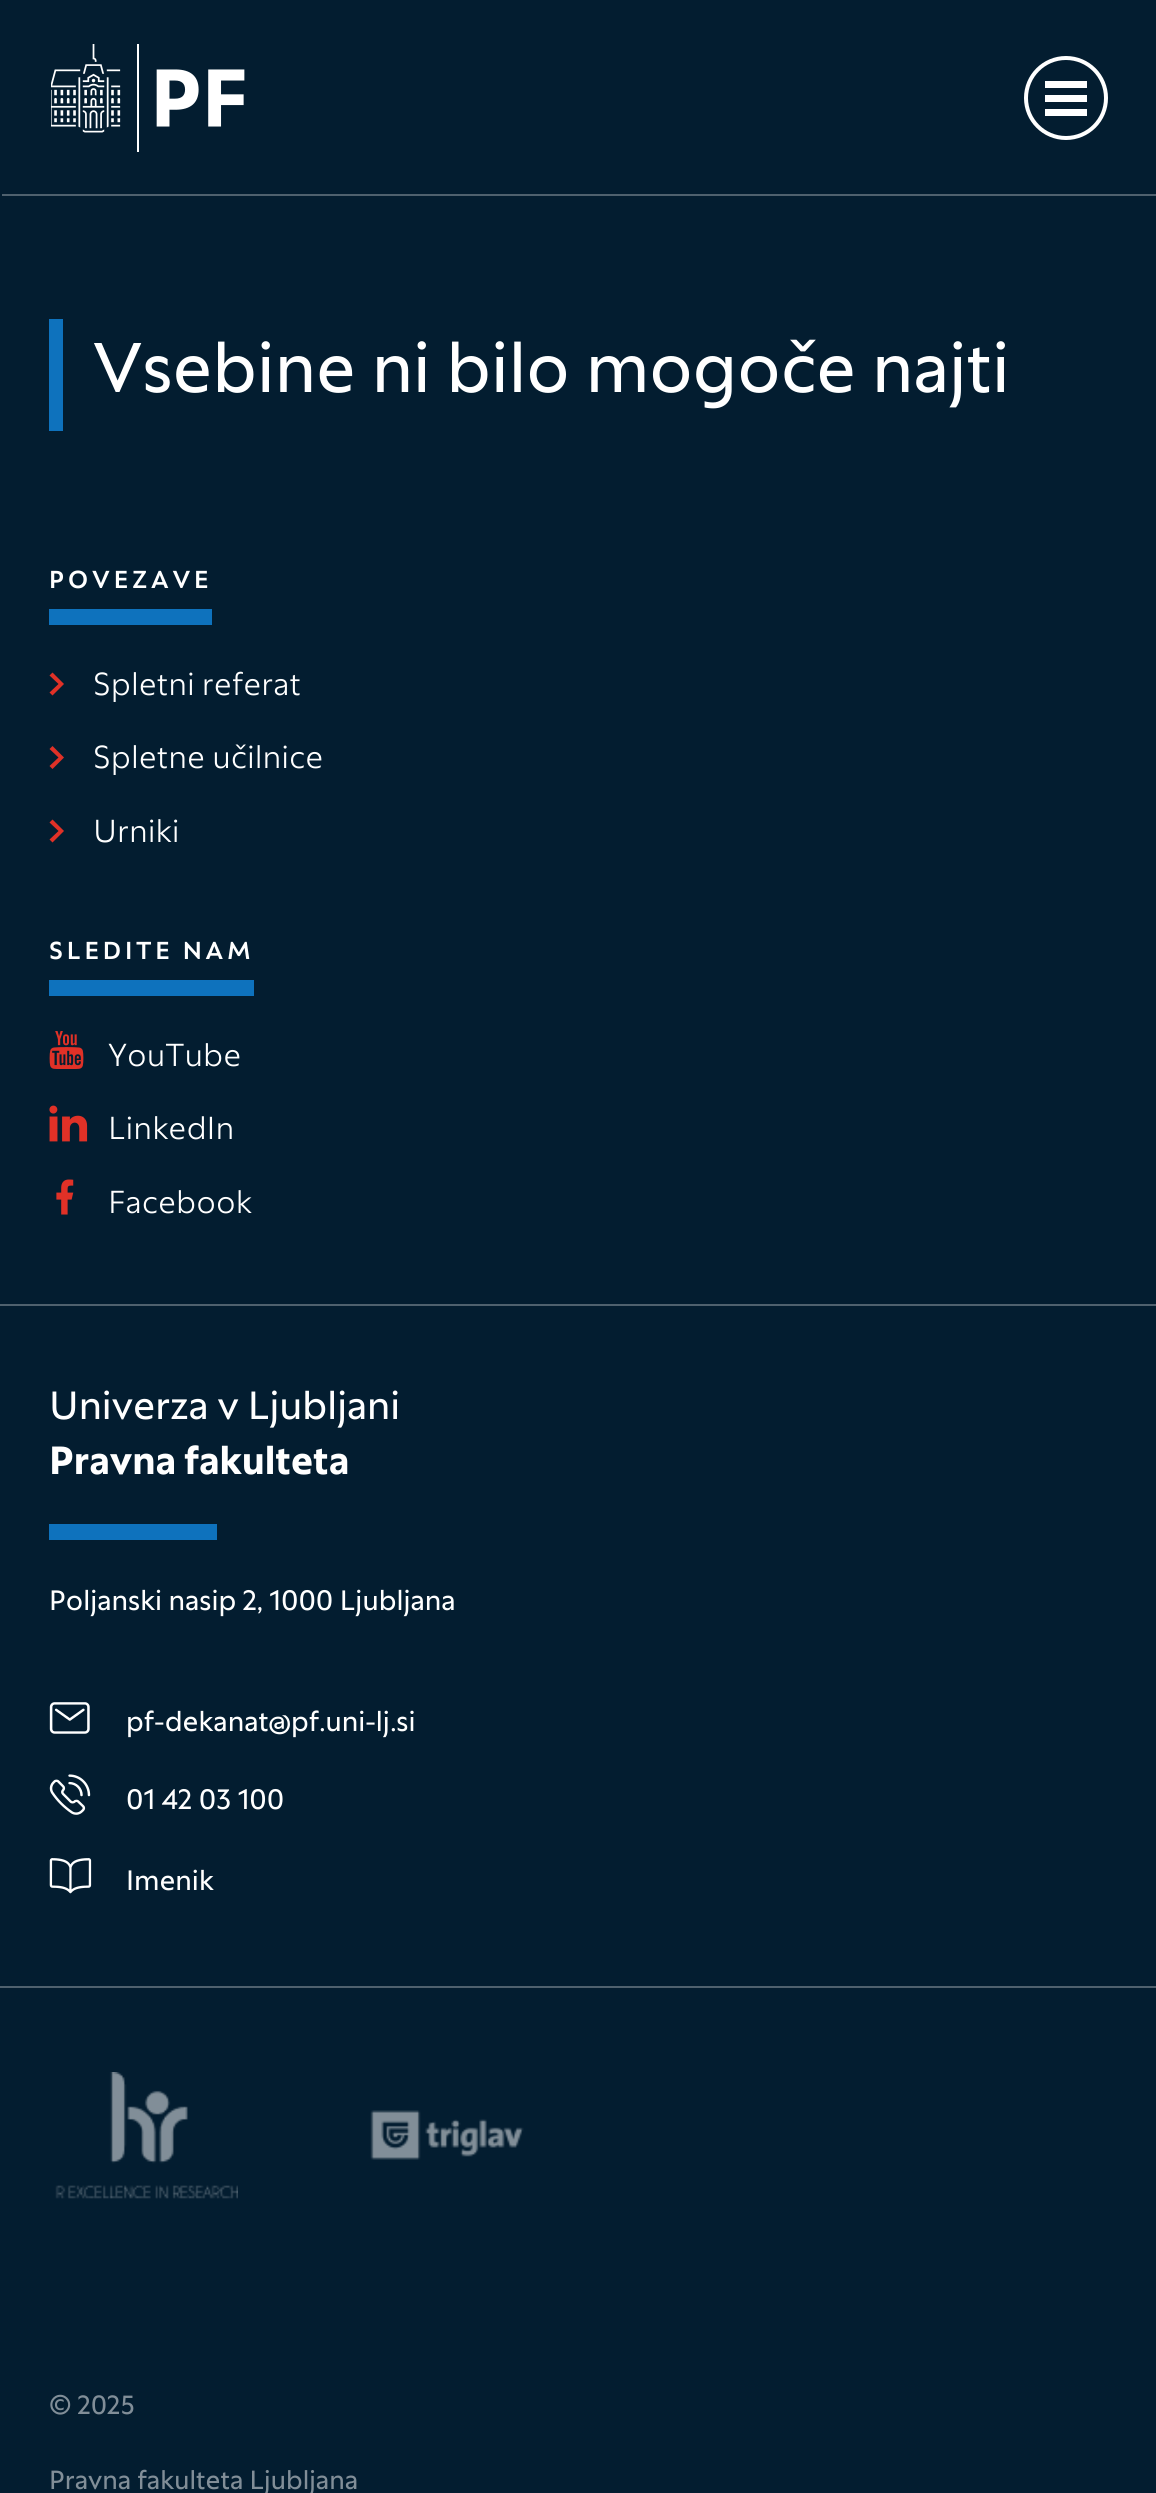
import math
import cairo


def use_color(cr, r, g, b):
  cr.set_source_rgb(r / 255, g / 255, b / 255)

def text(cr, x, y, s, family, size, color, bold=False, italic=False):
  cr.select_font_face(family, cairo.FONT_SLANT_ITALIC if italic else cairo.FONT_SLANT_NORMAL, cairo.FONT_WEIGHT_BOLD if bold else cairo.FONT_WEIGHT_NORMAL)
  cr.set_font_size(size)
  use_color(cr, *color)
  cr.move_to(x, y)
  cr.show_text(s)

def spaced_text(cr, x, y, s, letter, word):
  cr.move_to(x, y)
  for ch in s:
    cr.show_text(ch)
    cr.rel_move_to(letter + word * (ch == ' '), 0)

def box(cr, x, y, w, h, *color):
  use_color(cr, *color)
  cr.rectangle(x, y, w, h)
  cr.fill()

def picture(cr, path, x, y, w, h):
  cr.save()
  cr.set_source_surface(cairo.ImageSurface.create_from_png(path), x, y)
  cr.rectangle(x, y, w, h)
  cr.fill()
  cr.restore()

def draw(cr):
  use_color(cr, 3, 29, 48)
  cr.paint()
  box(cr, 2, 194, 1154, 2, 79, 97, 110)
  picture(cr, "img_01.png", 51, 44, 194, 108)
  cr.arc(1066, 98, 40, 0, 2 * math.pi)
  use_color(cr, 255, 255, 255)
  cr.set_line_width(4)
  cr.stroke()
  box(cr, 1045, 81, 42, 7, 255, 255, 255)
  box(cr, 1045, 95, 42, 7, 255, 255, 255)
  box(cr, 1045, 109, 42, 7, 255, 255, 255)
  box(cr, 49, 319, 14, 112, 14, 114, 189)
  box(cr, 49, 609, 163, 16, 14, 114, 189)
  use_color(cr, 224, 49, 39)
  cr.new_path()
  cr.move_to(61, 681)
  cr.line_to(52.5, 672.5)
  cr.line_to(49.5, 675.5)
  cr.line_to(58.5, 684)
  cr.line_to(49.5, 692.5)
  cr.line_to(52.5, 695.5)
  cr.line_to(64, 684)
  cr.close_path()
  cr.fill()
  cr.new_path()
  cr.move_to(61, 754.5)
  cr.line_to(52.5, 746)
  cr.line_to(49.5, 749)
  cr.line_to(58.5, 757.5)
  cr.line_to(49.5, 766)
  cr.line_to(52.5, 769)
  cr.line_to(64, 757.5)
  cr.close_path()
  cr.fill()
  cr.new_path()
  cr.move_to(61, 828)
  cr.line_to(52.5, 819.5)
  cr.line_to(49.5, 822.5)
  cr.line_to(58.5, 831)
  cr.line_to(49.5, 839.5)
  cr.line_to(52.5, 842.5)
  cr.line_to(64, 831)
  cr.close_path()
  cr.fill()
  box(cr, 49, 980, 205, 16, 14, 114, 189)
  picture(cr, "img_02.png", 49, 1031, 35, 38)
  picture(cr, "img_03.png", 49, 1105, 39, 37)
  picture(cr, "img_04.png", 56, 1179, 18, 36)
  box(cr, 0, 1304, 1156, 2, 79, 97, 110)
  box(cr, 49, 1524, 168, 16, 14, 114, 189)
  picture(cr, "img_05.png", 49, 1702, 41, 32)
  picture(cr, "img_06.png", 49, 1774, 42, 41)
  picture(cr, "img_07.png", 49, 1858, 43, 36)
  box(cr, 0, 1986, 1156, 2, 79, 97, 110)
  picture(cr, "img_08.png", 55, 2072, 183, 127)
  picture(cr, "img_09.png", 370, 2110, 154, 50)
  text(cr, 93, 392, "Vsebine ni bilo mogoče najti", "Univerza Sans", 70, (255, 255, 255))
  cr.select_font_face("Univerza Sans Medium")
  cr.set_font_size(24.5)
  spaced_text(cr, 49, 588, "POVEZAVE", 3.75, 0)
  text(cr, 93, 695, "Spletni referat", "Univerza Sans Light", 31.75, (255, 255, 255))
  text(cr, 93, 768, "Spletne učilnice", "Univerza Sans Light", 31.75, (255, 255, 255))
  text(cr, 93, 842, "Urniki", "Univerza Sans Light", 31.75, (255, 255, 255))
  cr.select_font_face("Univerza Sans Medium")
  cr.set_font_size(24.5)
  spaced_text(cr, 49, 959, "SLEDITE NAM", 3.75, 0)
  text(cr, 108, 1066, "YouTube", "Univerza Sans Light", 31.75, (255, 255, 255))
  text(cr, 108, 1139, "LinkedIn", "Univerza Sans Light", 31.75, (255, 255, 255))
  text(cr, 108, 1213, "Facebook", "Univerza Sans Light", 31.75, (255, 255, 255))
  text(cr, 49, 1419, "Univerza v Ljubljani", "Univerza Sans", 39.25, (255, 255, 255))
  text(cr, 49, 1474, "Pravna fakulteta", "Univerza Sans", 39.25, (255, 255, 255), bold=True)
  text(cr, 49, 1610, "Poljanski nasip 2, 1000 Ljubljana", "Univerza Sans", 28, (255, 255, 255))
  text(cr, 126, 1731, "pf-dekanat@pf.uni-lj.si", "Univerza Sans", 28, (255, 255, 255))
  text(cr, 126, 1809, "01 42 03 100", "Univerza Sans", 28, (255, 255, 255))
  text(cr, 126, 1890, "Imenik", "Univerza Sans", 28, (255, 255, 255))
  text(cr, 49, 2414, "© 2025", "Univerza Sans", 26.25, (129, 142, 152))
  text(cr, 49, 2489, "Pravna fakulteta Ljubljana", "Univerza Sans", 26.25, (129, 142, 152))


surface = cairo.ImageSurface(cairo.FORMAT_RGB24, 1156, 2493)
cr = cairo.Context(surface)
options = cairo.FontOptions()
options.set_hint_metrics(cairo.HINT_METRICS_OFF)
options.set_hint_style(cairo.HINT_STYLE_NONE)
cr.set_font_options(options)
cr.set_miter_limit(4)
draw(cr)
surface.write_to_png("out.png")
